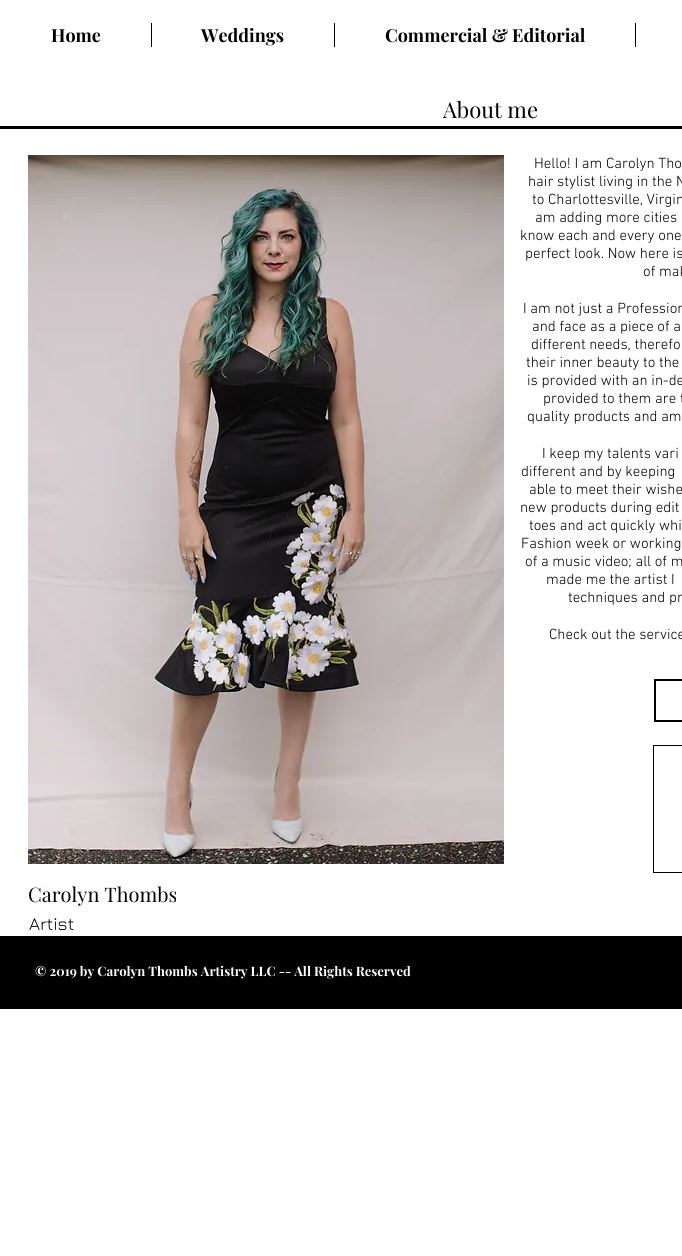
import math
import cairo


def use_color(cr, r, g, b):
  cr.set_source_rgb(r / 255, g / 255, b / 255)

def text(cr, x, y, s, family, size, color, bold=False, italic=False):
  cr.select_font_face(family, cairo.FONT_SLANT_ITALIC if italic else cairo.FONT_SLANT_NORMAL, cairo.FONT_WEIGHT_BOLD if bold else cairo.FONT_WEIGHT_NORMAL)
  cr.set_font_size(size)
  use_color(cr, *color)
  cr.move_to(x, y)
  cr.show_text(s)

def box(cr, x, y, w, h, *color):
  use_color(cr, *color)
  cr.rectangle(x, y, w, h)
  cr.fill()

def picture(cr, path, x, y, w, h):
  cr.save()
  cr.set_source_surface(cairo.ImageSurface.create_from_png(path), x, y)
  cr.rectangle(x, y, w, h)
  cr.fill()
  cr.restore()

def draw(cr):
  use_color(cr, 255, 255, 255)
  cr.paint()
  box(cr, 151, 23, 1, 24, 0, 0, 0)
  box(cr, 334, 23, 1, 24, 0, 0, 0)
  box(cr, 635, 23, 1, 24, 0, 0, 0)
  box(cr, 0, 126, 682, 3, 0, 0, 0)
  picture(cr, "img_01.png", 28, 155, 476, 709)
  cr.rectangle(655, 680, 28, 41)
  cr.stroke()
  box(cr, 653, 745, 29, 128, 0, 0, 0)
  box(cr, 654, 746, 28, 126, 255, 255, 255)
  box(cr, 0, 936, 682, 73, 0, 0, 0)
  text(cr, 51, 42, "Home", "Playfair Display", 18, (0, 0, 0), bold=True)
  text(cr, 201, 42, "Weddings", "Playfair Display", 18, (0, 0, 0), bold=True)
  text(cr, 385, 42, "Commercial & Editorial", "Playfair Display", 18, (0, 0, 0), bold=True)
  text(cr, 443, 118, "About me", "Playfair Display", 22, (0, 0, 0))
  text(cr, 534, 168, "Hello! I am Carolyn Tho", "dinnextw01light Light", 15, (0, 0, 0))
  text(cr, 528, 186, "hair stylist living in the N", "dinnextw01light Light", 15, (0, 0, 0))
  text(cr, 532, 204, "to Charlottesville, Virgin", "dinnextw01light Light", 15, (0, 0, 0))
  text(cr, 535, 222, "am adding more cities", "dinnextw01light Light", 15, (0, 0, 0))
  text(cr, 520, 240, "know each and every one", "dinnextw01light Light", 15, (0, 0, 0))
  text(cr, 525, 258, "perfect look. Now here is", "dinnextw01light Light", 15, (0, 0, 0))
  text(cr, 643, 276, "of mak", "dinnextw01light Light", 15, (0, 0, 0))
  text(cr, 523, 313, "I am not just a Profession", "dinnextw01light Light", 15, (0, 0, 0))
  text(cr, 532, 331, "and face as a piece of a", "dinnextw01light Light", 15, (0, 0, 0))
  text(cr, 531, 349, "different needs, therefo", "dinnextw01light Light", 15, (0, 0, 0))
  text(cr, 526, 367, "their inner beauty to the", "dinnextw01light Light", 15, (0, 0, 0))
  text(cr, 527, 385, "is provided with an in-de", "dinnextw01light Light", 15, (0, 0, 0))
  text(cr, 543, 403, "provided to them are t", "dinnextw01light Light", 15, (0, 0, 0))
  text(cr, 527, 421, "quality products and am", "dinnextw01light Light", 15, (0, 0, 0))
  text(cr, 542, 458, "I keep my talents vari", "dinnextw01light Light", 15, (0, 0, 0))
  text(cr, 521, 476, "different and by keeping", "dinnextw01light Light", 15, (0, 0, 0))
  text(cr, 529, 494, "able to meet their wishe", "dinnextw01light Light", 15, (0, 0, 0))
  text(cr, 520, 512, "new products during edit", "dinnextw01light Light", 15, (0, 0, 0))
  text(cr, 529, 530, "toes and act quickly whi", "dinnextw01light Light", 15, (0, 0, 0))
  text(cr, 521, 548, "Fashion week or working", "dinnextw01light Light", 15, (0, 0, 0))
  text(cr, 525, 566, "of a music video; all of m", "dinnextw01light Light", 15, (0, 0, 0))
  text(cr, 546, 584, "made me the artist I", "dinnextw01light Light", 15, (0, 0, 0))
  text(cr, 568, 602, "techniques and pr", "dinnextw01light Light", 15, (0, 0, 0))
  text(cr, 549, 639, "Check out the service", "dinnextw01light Light", 15, (0, 0, 0))
  text(cr, 28, 902, "Carolyn Thombs", "Playfair Display", 20, (0, 0, 0))
  text(cr, 29, 930, "Artist", "Jura", 18, (0, 0, 0))
  text(cr, 35, 976, "© 2019 by Carolyn Thombs Artistry LLC -- All Rights Reserved", "Playfair Display", 13, (255, 255, 255), bold=True)


surface = cairo.ImageSurface(cairo.FORMAT_RGB24, 682, 1256)
cr = cairo.Context(surface)
options = cairo.FontOptions()
options.set_hint_metrics(cairo.HINT_METRICS_OFF)
options.set_hint_style(cairo.HINT_STYLE_NONE)
cr.set_font_options(options)
cr.set_miter_limit(4)
draw(cr)
surface.write_to_png("out.png")
